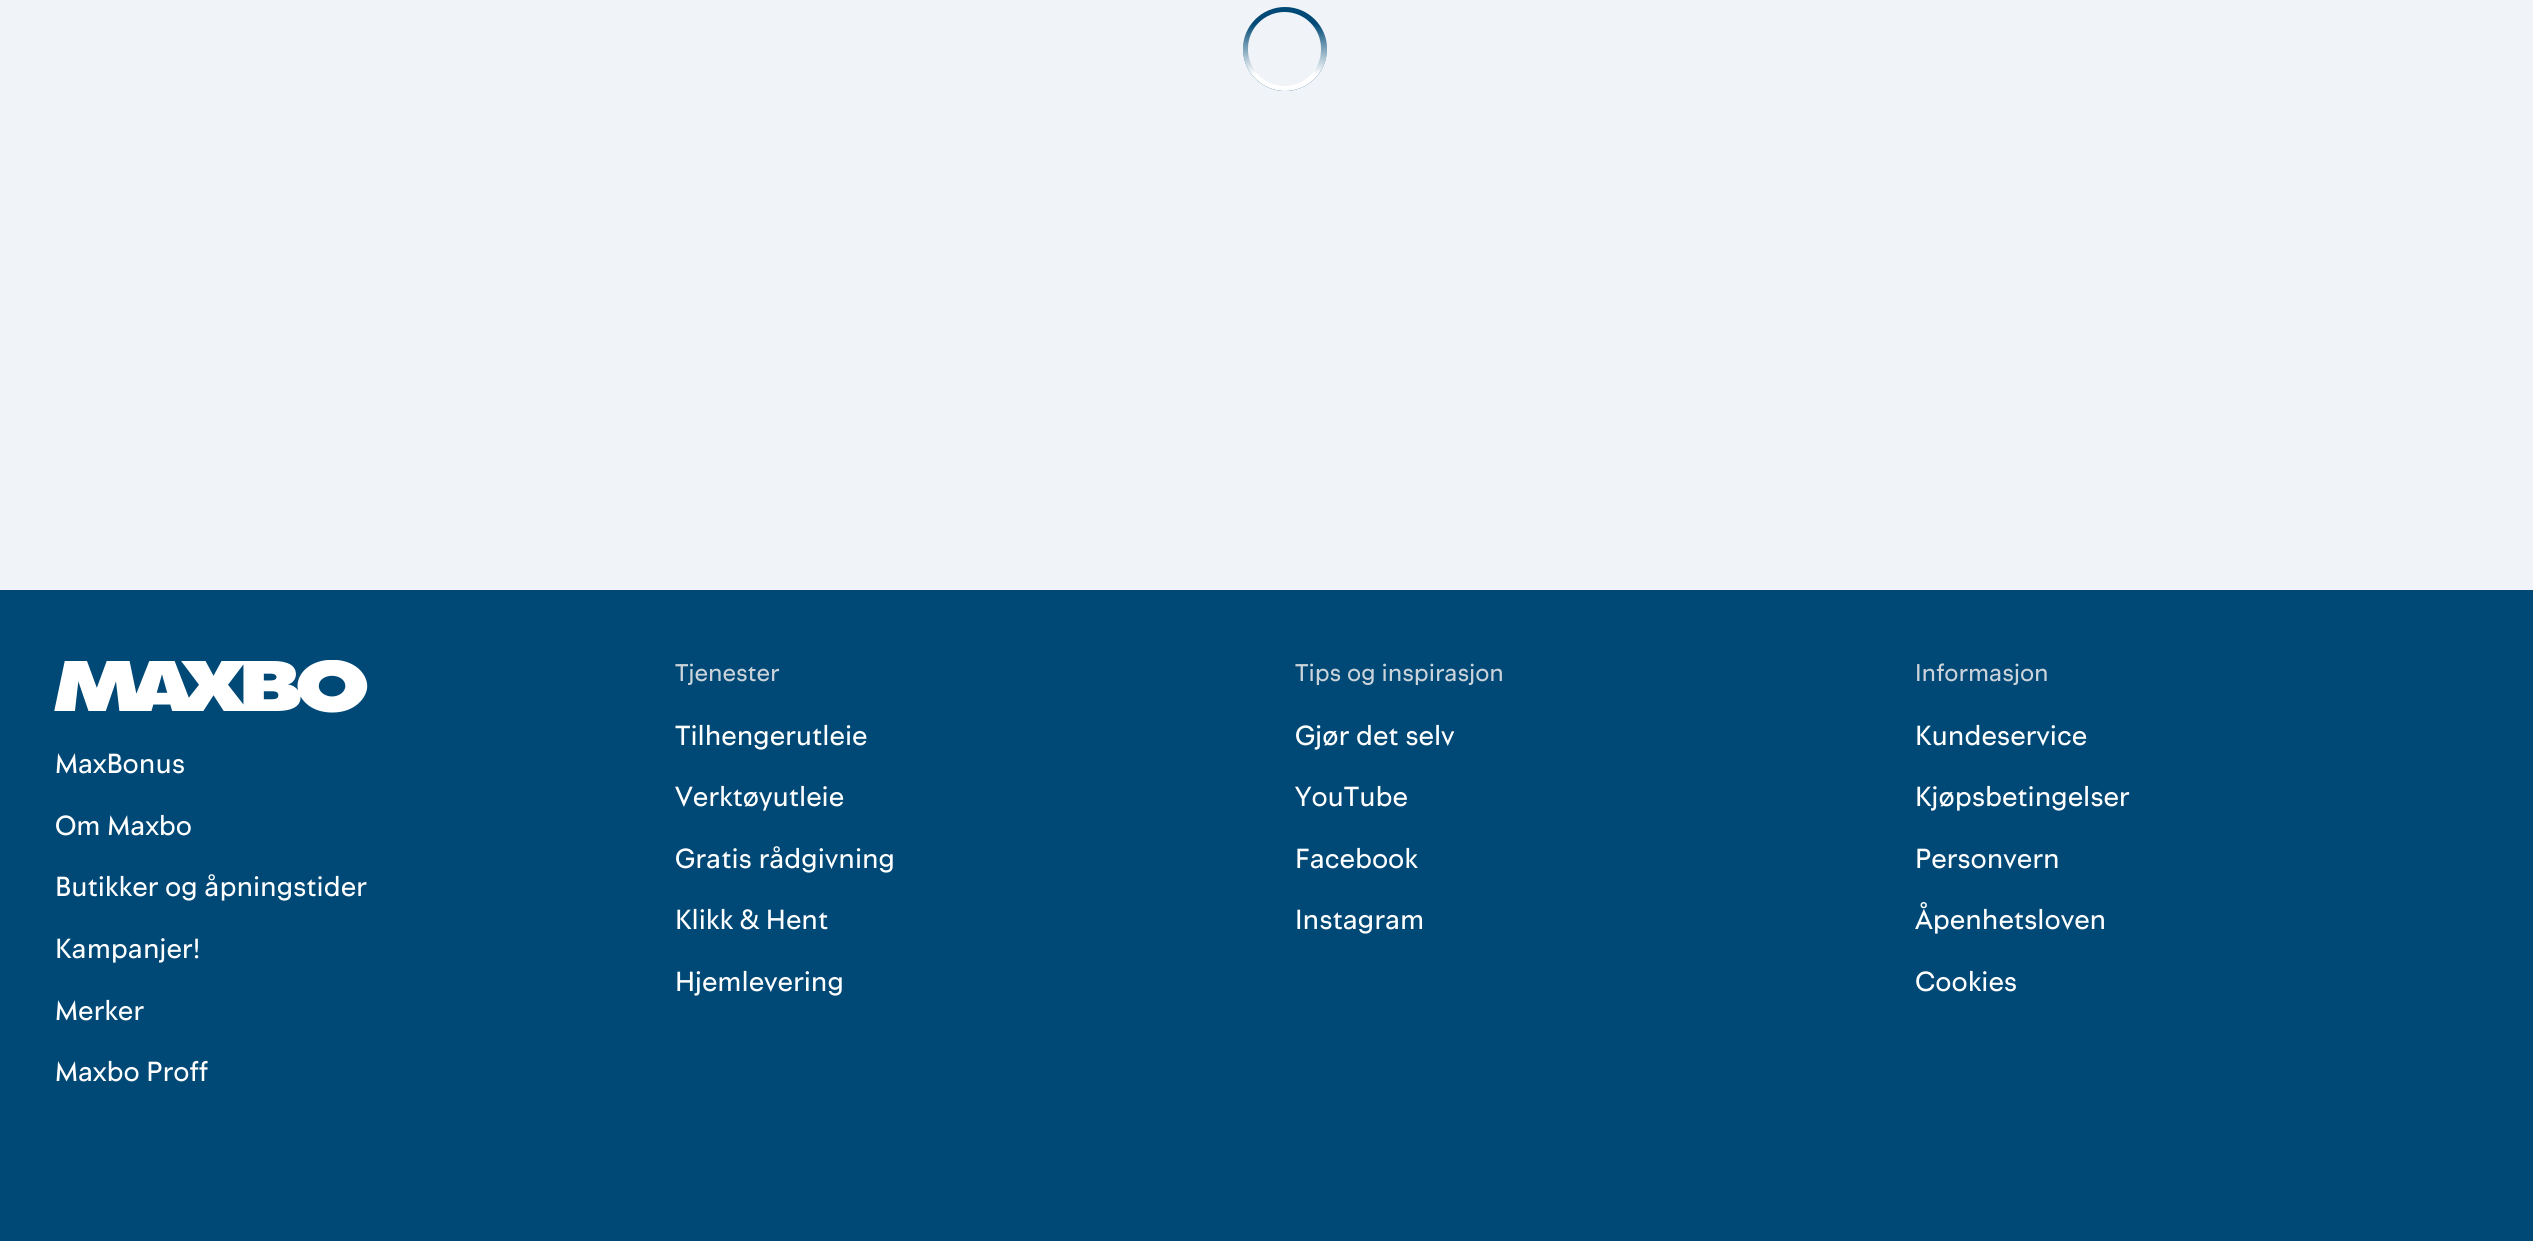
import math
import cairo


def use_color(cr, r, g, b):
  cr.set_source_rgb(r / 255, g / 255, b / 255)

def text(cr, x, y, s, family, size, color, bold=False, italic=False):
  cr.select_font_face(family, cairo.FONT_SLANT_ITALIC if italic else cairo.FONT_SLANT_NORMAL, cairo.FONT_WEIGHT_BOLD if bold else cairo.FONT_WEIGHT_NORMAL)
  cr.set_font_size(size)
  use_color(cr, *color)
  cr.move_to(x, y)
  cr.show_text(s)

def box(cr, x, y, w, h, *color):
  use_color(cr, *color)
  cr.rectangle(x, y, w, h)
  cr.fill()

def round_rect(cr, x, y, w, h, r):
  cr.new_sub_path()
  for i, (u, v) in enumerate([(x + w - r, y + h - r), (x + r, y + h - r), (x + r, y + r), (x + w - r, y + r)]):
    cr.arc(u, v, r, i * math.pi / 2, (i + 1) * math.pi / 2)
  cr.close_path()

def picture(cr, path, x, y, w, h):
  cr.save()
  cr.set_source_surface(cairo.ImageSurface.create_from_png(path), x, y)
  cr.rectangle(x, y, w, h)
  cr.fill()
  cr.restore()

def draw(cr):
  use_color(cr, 0, 73, 118)
  cr.paint()
  box(cr, 0, 0, 2533, 590, 240, 243, 247)
  use_color(cr, 0, 73, 118)
  cr.arc(1285, 49, 42, 0, 2 * math.pi)
  cr.fill()
  gradient = cairo.LinearGradient(1285, 91, 1285, 7)
  gradient.add_color_stop_rgba(0.2, 1, 1, 1, 1)
  gradient.add_color_stop_rgba(0.8, 1, 1, 1, 0)
  cr.set_source(gradient)
  cr.arc(1285, 49, 42, 0, 2 * math.pi)
  cr.fill()
  use_color(cr, 240, 243, 247)
  round_rect(cr, 1248, 12, 73, 74, 36.5)
  cr.fill()
  picture(cr, "img_01.png", 54, 660, 314, 53)
  text(cr, 55, 773, "MaxBonus", "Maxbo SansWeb", 28, (255, 255, 255))
  text(cr, 55, 835, "Om Maxbo", "Maxbo SansWeb", 28, (255, 255, 255))
  text(cr, 55, 896, "Butikker og åpningstider", "Maxbo SansWeb", 28, (255, 255, 255))
  text(cr, 55, 958, "Kampanjer!", "Maxbo SansWeb", 28, (255, 255, 255))
  text(cr, 55, 1020, "Merker", "Maxbo SansWeb", 28, (255, 255, 255))
  text(cr, 55, 1081, "Maxbo Proff", "Maxbo SansWeb", 28, (255, 255, 255))
  text(cr, 675, 681, "Tjenester", "Maxbo SansWeb", 24.5, (203, 211, 218))
  text(cr, 675, 745, "Tilhengerutleie", "Maxbo SansWeb", 28, (255, 255, 255))
  text(cr, 675, 806, "Verktøyutleie", "Maxbo SansWeb", 28, (255, 255, 255))
  text(cr, 675, 868, "Gratis rådgivning", "Maxbo SansWeb", 28, (255, 255, 255))
  text(cr, 675, 929, "Klikk & Hent", "Maxbo SansWeb", 28, (255, 255, 255))
  text(cr, 675, 991, "Hjemlevering", "Maxbo SansWeb", 28, (255, 255, 255))
  text(cr, 1295, 681, "Tips og inspirasjon", "Maxbo SansWeb", 24.5, (203, 211, 218))
  text(cr, 1295, 745, "Gjør det selv", "Maxbo SansWeb", 28, (255, 255, 255))
  text(cr, 1295, 806, "YouTube", "Maxbo SansWeb", 28, (255, 255, 255))
  text(cr, 1295, 868, "Facebook", "Maxbo SansWeb", 28, (255, 255, 255))
  text(cr, 1295, 929, "Instagram", "Maxbo SansWeb", 28, (255, 255, 255))
  text(cr, 1915, 681, "Informasjon", "Maxbo SansWeb", 24.5, (203, 211, 218))
  text(cr, 1915, 745, "Kundeservice", "Maxbo SansWeb", 28, (255, 255, 255))
  text(cr, 1915, 806, "Kjøpsbetingelser", "Maxbo SansWeb", 28, (255, 255, 255))
  text(cr, 1915, 868, "Personvern", "Maxbo SansWeb", 28, (255, 255, 255))
  text(cr, 1915, 929, "Åpenhetsloven", "Maxbo SansWeb", 28, (255, 255, 255))
  text(cr, 1915, 991, "Cookies", "Maxbo SansWeb", 28, (255, 255, 255))


surface = cairo.ImageSurface(cairo.FORMAT_RGB24, 2533, 1241)
cr = cairo.Context(surface)
options = cairo.FontOptions()
options.set_hint_metrics(cairo.HINT_METRICS_OFF)
options.set_hint_style(cairo.HINT_STYLE_NONE)
cr.set_font_options(options)
cr.set_miter_limit(4)
draw(cr)
surface.write_to_png("out.png")
